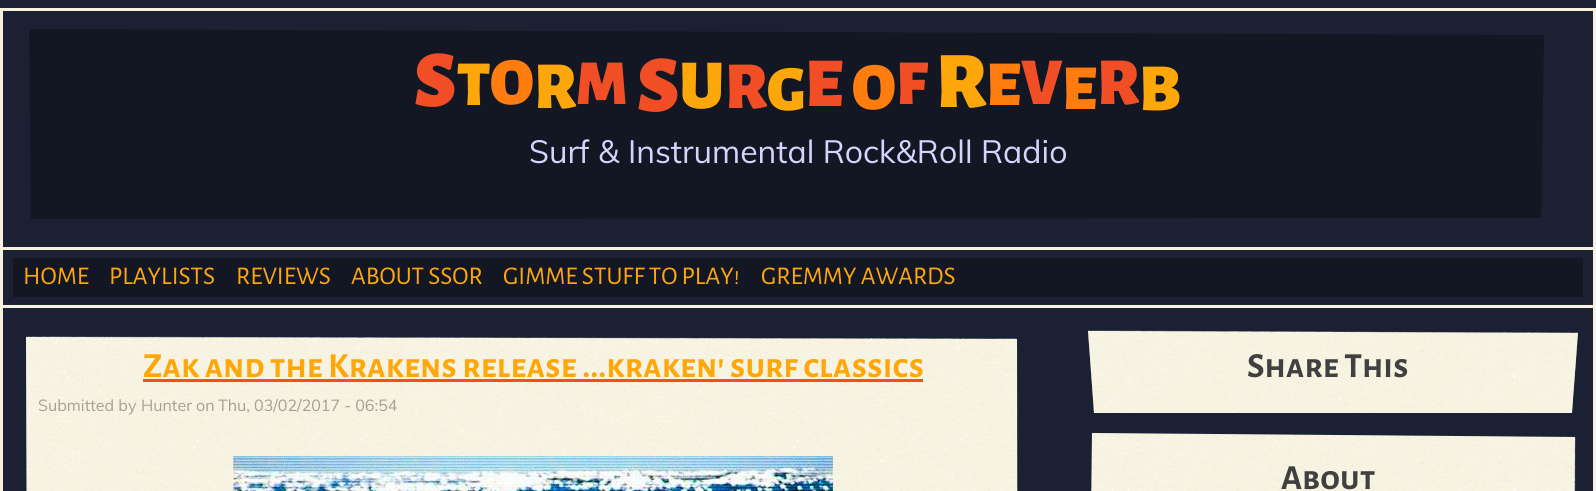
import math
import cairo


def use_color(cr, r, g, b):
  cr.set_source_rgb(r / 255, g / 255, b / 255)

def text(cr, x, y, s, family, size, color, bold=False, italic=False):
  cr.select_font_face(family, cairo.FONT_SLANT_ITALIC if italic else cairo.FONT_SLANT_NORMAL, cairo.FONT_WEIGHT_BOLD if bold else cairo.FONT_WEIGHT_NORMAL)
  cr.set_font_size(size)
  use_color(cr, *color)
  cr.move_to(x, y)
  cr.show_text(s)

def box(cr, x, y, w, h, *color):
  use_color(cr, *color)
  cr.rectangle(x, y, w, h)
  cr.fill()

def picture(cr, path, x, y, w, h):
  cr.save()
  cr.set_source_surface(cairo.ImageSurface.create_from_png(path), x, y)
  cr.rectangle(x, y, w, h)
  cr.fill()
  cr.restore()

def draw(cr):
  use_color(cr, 27, 32, 50)
  cr.paint()
  box(cr, 0, 8, 1596, 3, 246, 242, 223)
  box(cr, 1593, 8, 3, 239, 246, 242, 223)
  box(cr, 0, 8, 3, 239, 246, 242, 223)
  use_color(cr, 19, 22, 35)
  cr.new_path()
  cr.move_to(29, 29)
  cr.line_to(31, 219)
  cr.line_to(1541, 218)
  cr.line_to(1544, 35)
  cr.close_path()
  cr.fill()
  box(cr, 0, 247, 1596, 3, 246, 242, 223)
  box(cr, 1593, 247, 3, 58, 246, 242, 223)
  box(cr, 0, 247, 3, 58, 246, 242, 223)
  box(cr, 13, 258, 1570, 39, 19, 22, 35)
  cr.rectangle(1.5, 306.5, 1593, 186)
  use_color(cr, 246, 242, 223)
  cr.set_line_width(3)
  cr.stroke()
  use_color(cr, 243, 238, 213)
  cr.new_path()
  cr.move_to(26, 337)
  cr.line_to(34, 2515)
  cr.line_to(1020, 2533)
  cr.line_to(1017, 339)
  cr.close_path()
  cr.fill()
  picture(cr, "img_01.png", 26, 336, 992, 155)
  box(cr, 143, 379, 780, 3, 241, 78, 38)
  picture(cr, "img_02.png", 233, 456, 600, 35)
  use_color(cr, 243, 238, 213)
  cr.new_path()
  cr.move_to(1088, 331)
  cr.line_to(1578, 333)
  cr.line_to(1572, 413)
  cr.line_to(1094, 413)
  cr.close_path()
  cr.fill()
  picture(cr, "img_03.png", 1088, 330, 490, 83)
  cr.new_path()
  cr.move_to(1092, 433)
  cr.line_to(1080, 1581)
  cr.line_to(1567, 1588)
  cr.line_to(1575, 437)
  cr.close_path()
  cr.fill()
  picture(cr, "img_04.png", 1091, 433, 485, 58)
  text(cr, 414, 106, "S", "Alegreya Sans SC Black", 80, (241, 78, 38))
  text(cr, 457, 105, "T", "Alegreya Sans SC Black", 64, (254, 167, 10))
  text(cr, 490, 104, "O", "Alegreya Sans SC Black", 67, (255, 124, 15))
  text(cr, 534, 108, "R", "Alegreya Sans SC Black", 67, (254, 167, 10))
  text(cr, 576, 104, "M", "Alegreya Sans SC Black", 64, (241, 78, 38))
  text(cr, 637, 111, "S", "Alegreya Sans SC Black", 80, (241, 78, 38))
  text(cr, 679, 108, "U", "Alegreya Sans SC Black", 70, (254, 167, 10))
  text(cr, 725, 108, "R", "Alegreya Sans SC Black", 67, (241, 78, 38))
  text(cr, 767, 110, "G", "Alegreya Sans SC Black", 64, (254, 167, 10))
  text(cr, 805, 106, "E", "Alegreya Sans SC Black", 70, (241, 78, 38))
  text(cr, 852, 109, "O", "Alegreya Sans SC Black", 67, (255, 124, 15))
  text(cr, 896, 104, "F", "Alegreya Sans SC Black", 64, (241, 78, 38))
  text(cr, 936, 107, "R", "Alegreya Sans SC Black", 80, (254, 167, 10))
  text(cr, 986, 105, "E", "Alegreya Sans SC Black", 64, (255, 124, 15))
  text(cr, 1021, 104, "V", "Alegreya Sans SC Black", 67, (241, 78, 38))
  text(cr, 1062, 109, "E", "Alegreya Sans SC Black", 64, (255, 124, 15))
  text(cr, 1097, 104, "R", "Alegreya Sans SC Black", 67, (241, 78, 38))
  text(cr, 1139, 110, "B", "Alegreya Sans SC Black", 67, (254, 167, 10))
  text(cr, 529, 163, "Surf & Instrumental Rock&Roll Radio", "Muli", 32, (214, 212, 252))
  text(cr, 23, 284, "HOME", "Alegreya Sans SC", 25.5, (254, 167, 10))
  text(cr, 109, 284, "PLAYLISTS", "Alegreya Sans SC", 25.5, (254, 167, 10))
  text(cr, 236, 284, "REVIEWS", "Alegreya Sans SC", 25.5, (254, 167, 10))
  text(cr, 351, 284, "ABOUT SSOR", "Alegreya Sans SC", 25.5, (254, 167, 10))
  text(cr, 503, 284, "GIMME STUFF TO PLAY!", "Alegreya Sans SC", 25.5, (254, 167, 10))
  text(cr, 761, 284, "GREMMY AWARDS", "Alegreya Sans SC", 25.5, (254, 167, 10))
  text(cr, 143, 377, "Zak and the Krakens release ...kraken' surf classics", "Alegreya Sans SC", 35.2, (254, 167, 10), bold=True)
  text(cr, 38, 411, "Submitted by", "Muli", 16, (163, 161, 149))
  text(cr, 141, 411, "Hunter on", "Muli", 16, (163, 161, 149))
  text(cr, 218, 411, "Thu, 03/02/2017 - 06:54", "Muli", 16, (163, 161, 149))
  text(cr, 1247, 377, "Share This", "Alegreya Sans SC", 35.2, (64, 64, 64), bold=True)
  text(cr, 1281, 489, "About", "Alegreya Sans SC", 35.2, (64, 64, 64), bold=True)


surface = cairo.ImageSurface(cairo.FORMAT_RGB24, 1596, 491)
cr = cairo.Context(surface)
options = cairo.FontOptions()
options.set_hint_metrics(cairo.HINT_METRICS_OFF)
options.set_hint_style(cairo.HINT_STYLE_NONE)
cr.set_font_options(options)
cr.set_miter_limit(4)
draw(cr)
surface.write_to_png("out.png")
